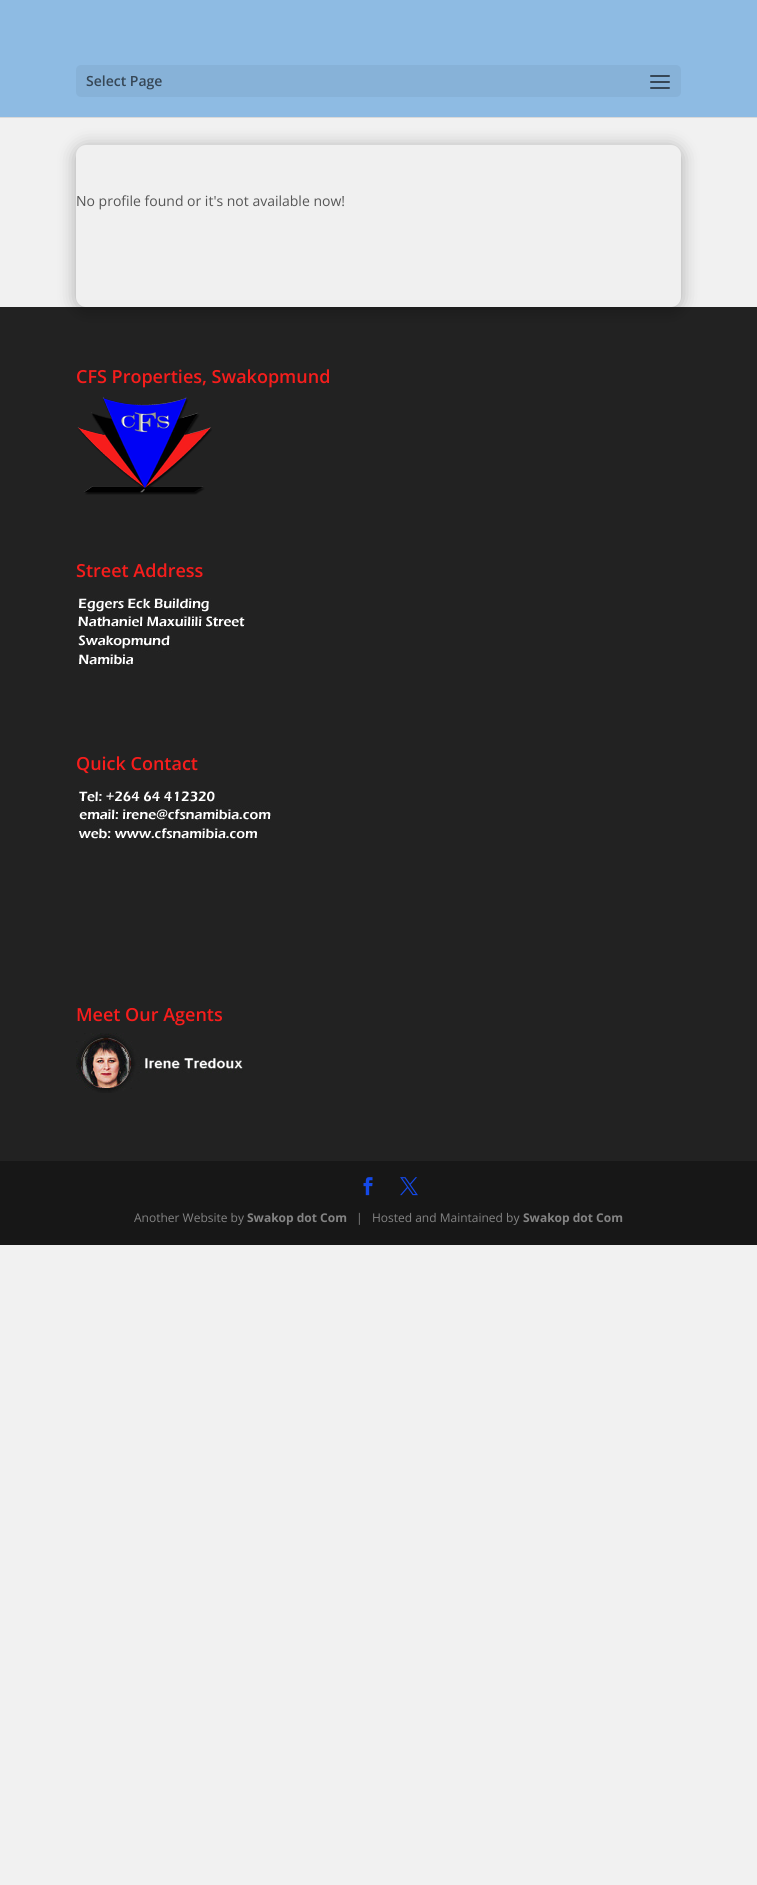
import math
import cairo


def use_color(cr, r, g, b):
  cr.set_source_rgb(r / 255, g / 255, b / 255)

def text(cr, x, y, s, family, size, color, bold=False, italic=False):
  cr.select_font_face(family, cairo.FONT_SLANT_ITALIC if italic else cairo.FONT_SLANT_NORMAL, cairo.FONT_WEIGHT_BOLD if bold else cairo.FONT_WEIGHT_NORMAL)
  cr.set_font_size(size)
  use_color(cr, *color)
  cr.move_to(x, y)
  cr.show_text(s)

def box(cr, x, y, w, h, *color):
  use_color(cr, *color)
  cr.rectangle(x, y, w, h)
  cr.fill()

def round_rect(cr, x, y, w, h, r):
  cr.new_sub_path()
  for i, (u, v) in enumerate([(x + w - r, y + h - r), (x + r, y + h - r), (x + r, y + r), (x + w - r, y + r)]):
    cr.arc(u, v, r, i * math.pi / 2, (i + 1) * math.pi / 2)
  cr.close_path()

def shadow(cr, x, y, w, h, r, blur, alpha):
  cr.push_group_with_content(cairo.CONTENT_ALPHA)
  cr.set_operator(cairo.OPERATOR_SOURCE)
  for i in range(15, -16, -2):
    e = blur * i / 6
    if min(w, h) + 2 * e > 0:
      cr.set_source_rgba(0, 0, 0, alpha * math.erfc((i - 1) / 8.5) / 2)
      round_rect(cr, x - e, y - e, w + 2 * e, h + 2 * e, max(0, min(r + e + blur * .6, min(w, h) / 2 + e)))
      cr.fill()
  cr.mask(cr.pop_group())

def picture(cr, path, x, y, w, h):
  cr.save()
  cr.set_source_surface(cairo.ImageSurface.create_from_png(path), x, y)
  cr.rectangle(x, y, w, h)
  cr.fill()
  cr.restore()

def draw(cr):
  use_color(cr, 241, 241, 241)
  cr.paint()
  box(cr, 0, 117, 757, 1, 217, 217, 217)
  box(cr, 0, 0, 757, 117, 142, 187, 227)
  use_color(cr, 135, 178, 216)
  round_rect(cr, 76, 65, 605, 32, 5)
  cr.fill()
  picture(cr, "img_01.png", 650, 75, 20, 14)
  box(cr, 0, 307, 757, 854, 34, 34, 34)
  use_color(cr, 0, 0, 0)
  shadow(cr, 76, 147, 605, 162, 10, 9, 0.3)
  use_color(cr, 240, 240, 240)
  round_rect(cr, 76, 145, 605, 162, 10)
  cr.fill()
  picture(cr, "img_02.png", 77, 397, 135, 98)
  picture(cr, "img_03.png", 78, 598, 167, 67)
  picture(cr, "img_04.png", 77, 791, 194, 48)
  picture(cr, "img_05.png", 76, 1033, 167, 60)
  box(cr, 0, 1161, 757, 84, 23, 23, 23)
  picture(cr, "img_06.png", 363, 1177, 10, 19)
  picture(cr, "img_07.png", 400, 1177, 18, 19)
  text(cr, 86, 86, "Select Page", "Open Sans SemiBold", 14, (54, 71, 86))
  text(cr, 76, 206, "No profile found or it's not available now!", "Open Sans", 14, (86, 86, 86))
  text(cr, 76, 383, "CFS Properties, Swakopmund", "Open Sans SemiBold", 18, (247, 29, 28))
  text(cr, 76, 577, "Street Address", "Open Sans SemiBold", 18, (247, 29, 28))
  text(cr, 76, 770, "Quick Contact", "Open Sans SemiBold", 18, (247, 29, 28))
  text(cr, 76, 1021, "Meet Our Agents", "Open Sans SemiBold", 18, (247, 29, 28))
  text(cr, 134, 1222, "Another Website by", "Open Sans", 12, (132, 132, 132))
  text(cr, 247, 1222, "Swakop dot Com", "Open Sans", 12, (132, 132, 132), bold=True)
  text(cr, 356, 1222, "|   Hosted and Maintained by", "Open Sans", 12, (132, 132, 132))
  text(cr, 523, 1222, "Swakop dot Com", "Open Sans", 12, (132, 132, 132), bold=True)


surface = cairo.ImageSurface(cairo.FORMAT_RGB24, 757, 1885)
cr = cairo.Context(surface)
options = cairo.FontOptions()
options.set_hint_metrics(cairo.HINT_METRICS_OFF)
options.set_hint_style(cairo.HINT_STYLE_NONE)
cr.set_font_options(options)
cr.set_miter_limit(4)
draw(cr)
surface.write_to_png("out.png")
